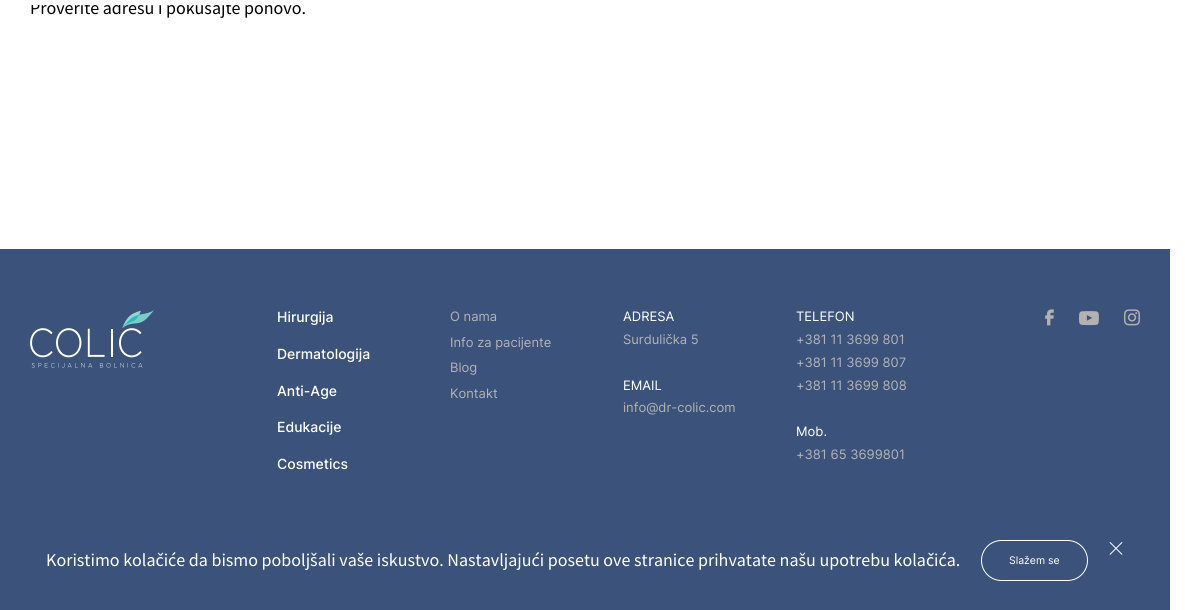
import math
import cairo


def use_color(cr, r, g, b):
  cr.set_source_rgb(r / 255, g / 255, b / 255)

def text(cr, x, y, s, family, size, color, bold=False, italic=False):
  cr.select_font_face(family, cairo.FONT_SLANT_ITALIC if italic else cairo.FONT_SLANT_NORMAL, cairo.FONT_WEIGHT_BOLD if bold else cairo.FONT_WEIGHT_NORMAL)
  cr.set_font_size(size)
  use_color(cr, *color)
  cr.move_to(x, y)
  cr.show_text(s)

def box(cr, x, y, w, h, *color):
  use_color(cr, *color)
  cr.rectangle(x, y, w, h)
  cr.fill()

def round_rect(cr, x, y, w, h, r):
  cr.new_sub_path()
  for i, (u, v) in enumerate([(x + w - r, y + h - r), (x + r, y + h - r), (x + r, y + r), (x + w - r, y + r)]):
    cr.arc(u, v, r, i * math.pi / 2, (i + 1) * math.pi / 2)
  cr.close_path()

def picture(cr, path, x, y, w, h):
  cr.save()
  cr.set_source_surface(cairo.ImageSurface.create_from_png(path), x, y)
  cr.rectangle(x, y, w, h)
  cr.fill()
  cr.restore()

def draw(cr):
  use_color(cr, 255, 255, 255)
  cr.paint()
  box(cr, 0, 249, 1170, 361, 59, 83, 123)
  picture(cr, "img_01.png", 30, 310, 124, 58)
  picture(cr, "img_02.png", 1045, 309, 9, 17)
  picture(cr, "img_03.png", 1079, 311, 20, 15)
  picture(cr, "img_04.png", 1124, 309, 16, 17)
  picture(cr, "img_05.png", 1109, 542, 14, 13)
  round_rect(cr, 981.5, 540.5, 106, 40, 20)
  use_color(cr, 255, 255, 255)
  cr.set_line_width(1)
  cr.stroke()
  text(cr, 30, 14, "Proverite adresu i pokušajte ponovo.", "Source Sans Pro", 18, (0, 0, 0))
  box(cr, 31, 0, 198, 5, 255, 255, 255)
  text(cr, 277, 322, "Hirurgija", "Inter Medium", 14, (255, 255, 255))
  text(cr, 277, 359, "Dermatologija", "Inter Medium", 14, (255, 255, 255))
  text(cr, 277, 396, "Anti-Age", "Inter Medium", 14, (255, 255, 255))
  text(cr, 277, 432, "Edukacije", "Inter Medium", 14, (255, 255, 255))
  text(cr, 277, 469, "Cosmetics", "Inter Medium", 14, (255, 255, 255))
  text(cr, 450, 321, "O nama", "Inter", 13, (178, 178, 178))
  text(cr, 450, 347, "Info za pacijente", "Inter", 13, (178, 178, 178))
  text(cr, 450, 372, "Blog", "Inter", 13, (178, 178, 178))
  text(cr, 450, 398, "Kontakt", "Inter", 13, (178, 178, 178))
  text(cr, 623, 321, "ADRESA", "Inter", 13, (255, 255, 255))
  text(cr, 623, 344, "Surdulička 5", "Inter", 13, (178, 178, 178))
  text(cr, 623, 390, "EMAIL", "Inter", 13, (255, 255, 255))
  text(cr, 623, 412, "info@dr-colic.com", "Inter", 13, (178, 178, 178))
  text(cr, 796, 321, "TELEFON", "Inter", 13, (255, 255, 255))
  text(cr, 796, 344, "+381 11 3699 801", "Inter", 13, (178, 178, 178))
  text(cr, 796, 367, "+381 11 3699 807", "Inter", 13, (178, 178, 178))
  text(cr, 796, 390, "+381 11 3699 808", "Inter", 13, (178, 178, 178))
  text(cr, 796, 436, "Mob.", "Inter", 13, (255, 255, 255))
  text(cr, 796, 459, "+381 65 3699801", "Inter", 13, (178, 178, 178))
  text(cr, 46, 566, "Koristimo kolačiće da bismo poboljšali vaše iskustvo. Nastavljajući posetu ove stranice prihvatate našu upotrebu kolačića.", "Source Sans Pro", 18, (255, 255, 255))
  text(cr, 1009, 564, "Slažem se", "Inter", 10.5, (255, 255, 255))


surface = cairo.ImageSurface(cairo.FORMAT_RGB24, 1185, 610)
cr = cairo.Context(surface)
options = cairo.FontOptions()
options.set_hint_metrics(cairo.HINT_METRICS_OFF)
options.set_hint_style(cairo.HINT_STYLE_NONE)
cr.set_font_options(options)
cr.set_miter_limit(4)
draw(cr)
surface.write_to_png("out.png")
